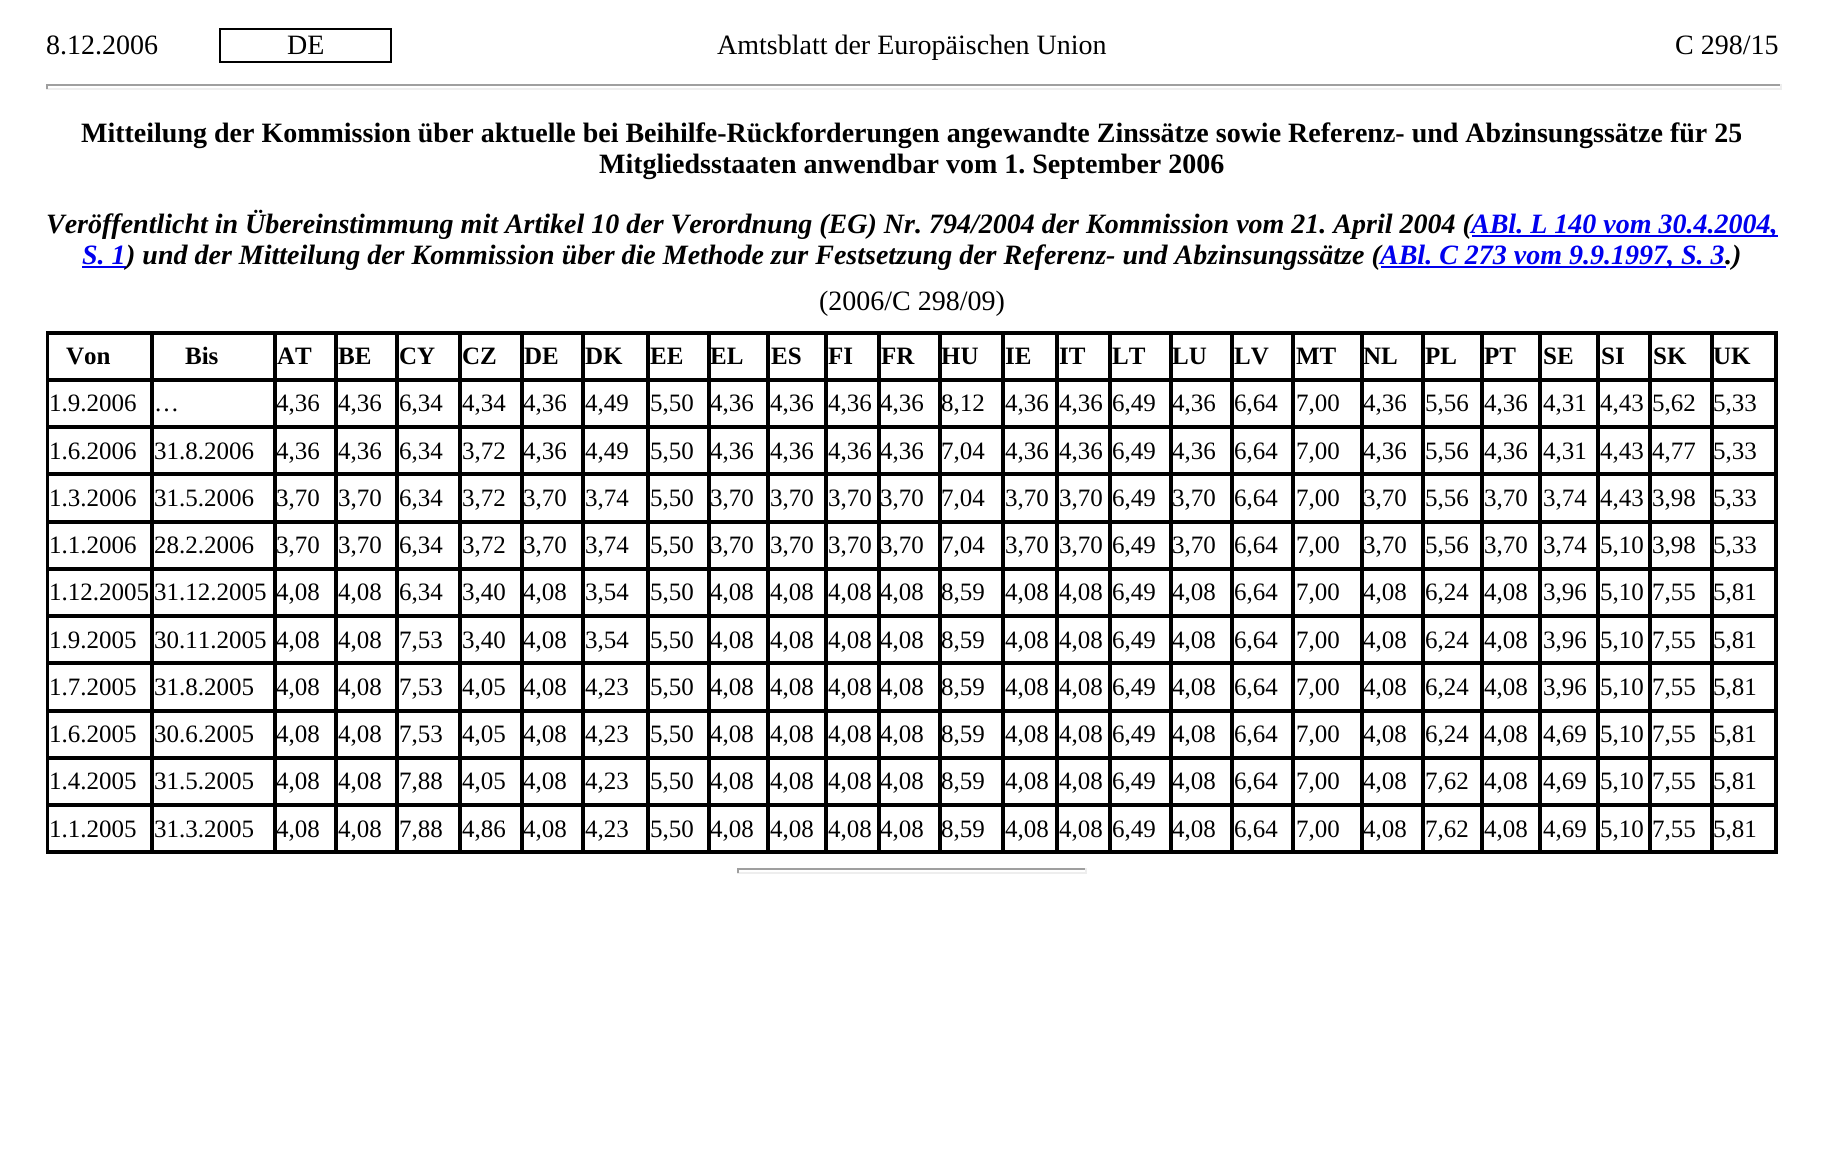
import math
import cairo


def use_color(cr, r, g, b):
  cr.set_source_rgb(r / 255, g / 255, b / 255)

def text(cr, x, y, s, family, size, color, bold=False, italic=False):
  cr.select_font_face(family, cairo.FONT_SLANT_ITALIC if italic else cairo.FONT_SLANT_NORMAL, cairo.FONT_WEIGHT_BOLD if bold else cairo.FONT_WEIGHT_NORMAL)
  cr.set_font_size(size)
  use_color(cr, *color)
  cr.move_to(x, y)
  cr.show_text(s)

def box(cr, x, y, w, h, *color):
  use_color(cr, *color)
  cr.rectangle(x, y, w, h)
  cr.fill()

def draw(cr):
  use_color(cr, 255, 255, 255)
  cr.paint()
  cr.rectangle(220, 29, 171, 33)
  use_color(cr, 0, 0, 0)
  cr.stroke()
  box(cr, 46, 84, 1736, 2, 159, 159, 159)
  box(cr, 1780, 84, 2, 5, 238, 238, 238)
  box(cr, 46, 88, 1736, 2, 238, 238, 238)
  box(cr, 46, 84, 2, 5, 159, 159, 159)
  box(cr, 82, 266, 44, 2, 0, 0, 238)
  cr.rectangle(47, 332, 1730, 521)
  use_color(cr, 0, 0, 0)
  cr.stroke()
  cr.rectangle(48, 334, 103, 45)
  cr.stroke()
  cr.rectangle(153, 334, 121, 45)
  cr.stroke()
  cr.rectangle(276, 334, 59, 45)
  cr.stroke()
  cr.rectangle(337, 334, 59, 45)
  cr.stroke()
  cr.rectangle(398, 334, 61, 45)
  cr.stroke()
  cr.rectangle(461, 334, 60, 45)
  cr.stroke()
  cr.rectangle(523, 334, 59, 45)
  cr.stroke()
  cr.rectangle(584, 334, 63, 45)
  cr.stroke()
  cr.rectangle(649, 334, 59, 45)
  cr.stroke()
  cr.rectangle(710, 334, 57, 45)
  cr.stroke()
  cr.rectangle(769, 334, 56, 45)
  cr.stroke()
  cr.rectangle(827, 334, 51, 45)
  cr.stroke()
  cr.rectangle(880, 334, 59, 45)
  cr.stroke()
  cr.rectangle(941, 334, 61, 45)
  cr.stroke()
  cr.rectangle(1004, 334, 52, 45)
  cr.stroke()
  cr.rectangle(1058, 334, 51, 45)
  cr.stroke()
  cr.rectangle(1111, 334, 59, 45)
  cr.stroke()
  cr.rectangle(1172, 334, 59, 45)
  cr.stroke()
  cr.rectangle(1233, 334, 59, 45)
  cr.stroke()
  cr.rectangle(1294, 334, 67, 45)
  cr.stroke()
  cr.rectangle(1363, 334, 59, 45)
  cr.stroke()
  cr.rectangle(1424, 334, 57, 45)
  cr.stroke()
  cr.rectangle(1483, 334, 56, 45)
  cr.stroke()
  cr.rectangle(1541, 334, 56, 45)
  cr.stroke()
  cr.rectangle(1599, 334, 50, 45)
  cr.stroke()
  cr.rectangle(1651, 334, 60, 45)
  cr.stroke()
  cr.rectangle(1713, 334, 62, 45)
  cr.stroke()
  cr.rectangle(48, 381, 103, 45)
  cr.stroke()
  cr.rectangle(153, 381, 121, 45)
  cr.stroke()
  cr.rectangle(276, 381, 59, 45)
  cr.stroke()
  cr.rectangle(337, 381, 59, 45)
  cr.stroke()
  cr.rectangle(398, 381, 61, 45)
  cr.stroke()
  cr.rectangle(461, 381, 60, 45)
  cr.stroke()
  cr.rectangle(523, 381, 59, 45)
  cr.stroke()
  cr.rectangle(584, 381, 63, 45)
  cr.stroke()
  cr.rectangle(649, 381, 59, 45)
  cr.stroke()
  cr.rectangle(710, 381, 57, 45)
  cr.stroke()
  cr.rectangle(769, 381, 56, 45)
  cr.stroke()
  cr.rectangle(827, 381, 51, 45)
  cr.stroke()
  cr.rectangle(880, 381, 59, 45)
  cr.stroke()
  cr.rectangle(941, 381, 61, 45)
  cr.stroke()
  cr.rectangle(1004, 381, 52, 45)
  cr.stroke()
  cr.rectangle(1058, 381, 51, 45)
  cr.stroke()
  cr.rectangle(1111, 381, 59, 45)
  cr.stroke()
  cr.rectangle(1172, 381, 59, 45)
  cr.stroke()
  cr.rectangle(1233, 381, 59, 45)
  cr.stroke()
  cr.rectangle(1294, 381, 67, 45)
  cr.stroke()
  cr.rectangle(1363, 381, 59, 45)
  cr.stroke()
  cr.rectangle(1424, 381, 57, 45)
  cr.stroke()
  cr.rectangle(1483, 381, 56, 45)
  cr.stroke()
  cr.rectangle(1541, 381, 56, 45)
  cr.stroke()
  cr.rectangle(1599, 381, 50, 45)
  cr.stroke()
  cr.rectangle(1651, 381, 60, 45)
  cr.stroke()
  cr.rectangle(1713, 381, 62, 45)
  cr.stroke()
  cr.rectangle(48, 428, 103, 45)
  cr.stroke()
  cr.rectangle(153, 428, 121, 45)
  cr.stroke()
  cr.rectangle(276, 428, 59, 45)
  cr.stroke()
  cr.rectangle(337, 428, 59, 45)
  cr.stroke()
  cr.rectangle(398, 428, 61, 45)
  cr.stroke()
  cr.rectangle(461, 428, 60, 45)
  cr.stroke()
  cr.rectangle(523, 428, 59, 45)
  cr.stroke()
  cr.rectangle(584, 428, 63, 45)
  cr.stroke()
  cr.rectangle(649, 428, 59, 45)
  cr.stroke()
  cr.rectangle(710, 428, 57, 45)
  cr.stroke()
  cr.rectangle(769, 428, 56, 45)
  cr.stroke()
  cr.rectangle(827, 428, 51, 45)
  cr.stroke()
  cr.rectangle(880, 428, 59, 45)
  cr.stroke()
  cr.rectangle(941, 428, 61, 45)
  cr.stroke()
  cr.rectangle(1004, 428, 52, 45)
  cr.stroke()
  cr.rectangle(1058, 428, 51, 45)
  cr.stroke()
  cr.rectangle(1111, 428, 59, 45)
  cr.stroke()
  cr.rectangle(1172, 428, 59, 45)
  cr.stroke()
  cr.rectangle(1233, 428, 59, 45)
  cr.stroke()
  cr.rectangle(1294, 428, 67, 45)
  cr.stroke()
  cr.rectangle(1363, 428, 59, 45)
  cr.stroke()
  cr.rectangle(1424, 428, 57, 45)
  cr.stroke()
  cr.rectangle(1483, 428, 56, 45)
  cr.stroke()
  cr.rectangle(1541, 428, 56, 45)
  cr.stroke()
  cr.rectangle(1599, 428, 50, 45)
  cr.stroke()
  cr.rectangle(1651, 428, 60, 45)
  cr.stroke()
  cr.rectangle(1713, 428, 62, 45)
  cr.stroke()
  cr.rectangle(48, 475, 103, 46)
  cr.stroke()
  cr.rectangle(153, 475, 121, 46)
  cr.stroke()
  cr.rectangle(276, 475, 59, 46)
  cr.stroke()
  cr.rectangle(337, 475, 59, 46)
  cr.stroke()
  cr.rectangle(398, 475, 61, 46)
  cr.stroke()
  cr.rectangle(461, 475, 60, 46)
  cr.stroke()
  cr.rectangle(523, 475, 59, 46)
  cr.stroke()
  cr.rectangle(584, 475, 63, 46)
  cr.stroke()
  cr.rectangle(649, 475, 59, 46)
  cr.stroke()
  cr.rectangle(710, 475, 57, 46)
  cr.stroke()
  cr.rectangle(769, 475, 56, 46)
  cr.stroke()
  cr.rectangle(827, 475, 51, 46)
  cr.stroke()
  cr.rectangle(880, 475, 59, 46)
  cr.stroke()
  cr.rectangle(941, 475, 61, 46)
  cr.stroke()
  cr.rectangle(1004, 475, 52, 46)
  cr.stroke()
  cr.rectangle(1058, 475, 51, 46)
  cr.stroke()
  cr.rectangle(1111, 475, 59, 46)
  cr.stroke()
  cr.rectangle(1172, 475, 59, 46)
  cr.stroke()
  cr.rectangle(1233, 475, 59, 46)
  cr.stroke()
  cr.rectangle(1294, 475, 67, 46)
  cr.stroke()
  cr.rectangle(1363, 475, 59, 46)
  cr.stroke()
  cr.rectangle(1424, 475, 57, 46)
  cr.stroke()
  cr.rectangle(1483, 475, 56, 46)
  cr.stroke()
  cr.rectangle(1541, 475, 56, 46)
  cr.stroke()
  cr.rectangle(1599, 475, 50, 46)
  cr.stroke()
  cr.rectangle(1651, 475, 60, 46)
  cr.stroke()
  cr.rectangle(1713, 475, 62, 46)
  cr.stroke()
  cr.rectangle(48, 523, 103, 45)
  cr.stroke()
  cr.rectangle(153, 523, 121, 45)
  cr.stroke()
  cr.rectangle(276, 523, 59, 45)
  cr.stroke()
  cr.rectangle(337, 523, 59, 45)
  cr.stroke()
  cr.rectangle(398, 523, 61, 45)
  cr.stroke()
  cr.rectangle(461, 523, 60, 45)
  cr.stroke()
  cr.rectangle(523, 523, 59, 45)
  cr.stroke()
  cr.rectangle(584, 523, 63, 45)
  cr.stroke()
  cr.rectangle(649, 523, 59, 45)
  cr.stroke()
  cr.rectangle(710, 523, 57, 45)
  cr.stroke()
  cr.rectangle(769, 523, 56, 45)
  cr.stroke()
  cr.rectangle(827, 523, 51, 45)
  cr.stroke()
  cr.rectangle(880, 523, 59, 45)
  cr.stroke()
  cr.rectangle(941, 523, 61, 45)
  cr.stroke()
  cr.rectangle(1004, 523, 52, 45)
  cr.stroke()
  cr.rectangle(1058, 523, 51, 45)
  cr.stroke()
  cr.rectangle(1111, 523, 59, 45)
  cr.stroke()
  cr.rectangle(1172, 523, 59, 45)
  cr.stroke()
  cr.rectangle(1233, 523, 59, 45)
  cr.stroke()
  cr.rectangle(1294, 523, 67, 45)
  cr.stroke()
  cr.rectangle(1363, 523, 59, 45)
  cr.stroke()
  cr.rectangle(1424, 523, 57, 45)
  cr.stroke()
  cr.rectangle(1483, 523, 56, 45)
  cr.stroke()
  cr.rectangle(1541, 523, 56, 45)
  cr.stroke()
  cr.rectangle(1599, 523, 50, 45)
  cr.stroke()
  cr.rectangle(1651, 523, 60, 45)
  cr.stroke()
  cr.rectangle(1713, 523, 62, 45)
  cr.stroke()
  cr.rectangle(48, 570, 103, 45)
  cr.stroke()
  cr.rectangle(153, 570, 121, 45)
  cr.stroke()
  cr.rectangle(276, 570, 59, 45)
  cr.stroke()
  cr.rectangle(337, 570, 59, 45)
  cr.stroke()
  cr.rectangle(398, 570, 61, 45)
  cr.stroke()
  cr.rectangle(461, 570, 60, 45)
  cr.stroke()
  cr.rectangle(523, 570, 59, 45)
  cr.stroke()
  cr.rectangle(584, 570, 63, 45)
  cr.stroke()
  cr.rectangle(649, 570, 59, 45)
  cr.stroke()
  cr.rectangle(710, 570, 57, 45)
  cr.stroke()
  cr.rectangle(769, 570, 56, 45)
  cr.stroke()
  cr.rectangle(827, 570, 51, 45)
  cr.stroke()
  cr.rectangle(880, 570, 59, 45)
  cr.stroke()
  cr.rectangle(941, 570, 61, 45)
  cr.stroke()
  cr.rectangle(1004, 570, 52, 45)
  cr.stroke()
  cr.rectangle(1058, 570, 51, 45)
  cr.stroke()
  cr.rectangle(1111, 570, 59, 45)
  cr.stroke()
  cr.rectangle(1172, 570, 59, 45)
  cr.stroke()
  cr.rectangle(1233, 570, 59, 45)
  cr.stroke()
  cr.rectangle(1294, 570, 67, 45)
  cr.stroke()
  cr.rectangle(1363, 570, 59, 45)
  cr.stroke()
  cr.rectangle(1424, 570, 57, 45)
  cr.stroke()
  cr.rectangle(1483, 570, 56, 45)
  cr.stroke()
  cr.rectangle(1541, 570, 56, 45)
  cr.stroke()
  cr.rectangle(1599, 570, 50, 45)
  cr.stroke()
  cr.rectangle(1651, 570, 60, 45)
  cr.stroke()
  cr.rectangle(1713, 570, 62, 45)
  cr.stroke()
  cr.rectangle(48, 617, 103, 45)
  cr.stroke()
  cr.rectangle(153, 617, 121, 45)
  cr.stroke()
  cr.rectangle(276, 617, 59, 45)
  cr.stroke()
  cr.rectangle(337, 617, 59, 45)
  cr.stroke()
  cr.rectangle(398, 617, 61, 45)
  cr.stroke()
  cr.rectangle(461, 617, 60, 45)
  cr.stroke()
  cr.rectangle(523, 617, 59, 45)
  cr.stroke()
  cr.rectangle(584, 617, 63, 45)
  cr.stroke()
  cr.rectangle(649, 617, 59, 45)
  cr.stroke()
  cr.rectangle(710, 617, 57, 45)
  cr.stroke()
  cr.rectangle(769, 617, 56, 45)
  cr.stroke()
  cr.rectangle(827, 617, 51, 45)
  cr.stroke()
  cr.rectangle(880, 617, 59, 45)
  cr.stroke()
  cr.rectangle(941, 617, 61, 45)
  cr.stroke()
  cr.rectangle(1004, 617, 52, 45)
  cr.stroke()
  cr.rectangle(1058, 617, 51, 45)
  cr.stroke()
  cr.rectangle(1111, 617, 59, 45)
  cr.stroke()
  cr.rectangle(1172, 617, 59, 45)
  cr.stroke()
  cr.rectangle(1233, 617, 59, 45)
  cr.stroke()
  cr.rectangle(1294, 617, 67, 45)
  cr.stroke()
  cr.rectangle(1363, 617, 59, 45)
  cr.stroke()
  cr.rectangle(1424, 617, 57, 45)
  cr.stroke()
  cr.rectangle(1483, 617, 56, 45)
  cr.stroke()
  cr.rectangle(1541, 617, 56, 45)
  cr.stroke()
  cr.rectangle(1599, 617, 50, 45)
  cr.stroke()
  cr.rectangle(1651, 617, 60, 45)
  cr.stroke()
  cr.rectangle(1713, 617, 62, 45)
  cr.stroke()
  cr.rectangle(48, 664, 103, 46)
  cr.stroke()
  cr.rectangle(153, 664, 121, 46)
  cr.stroke()
  cr.rectangle(276, 664, 59, 46)
  cr.stroke()
  cr.rectangle(337, 664, 59, 46)
  cr.stroke()
  cr.rectangle(398, 664, 61, 46)
  cr.stroke()
  cr.rectangle(461, 664, 60, 46)
  cr.stroke()
  cr.rectangle(523, 664, 59, 46)
  cr.stroke()
  cr.rectangle(584, 664, 63, 46)
  cr.stroke()
  cr.rectangle(649, 664, 59, 46)
  cr.stroke()
  cr.rectangle(710, 664, 57, 46)
  cr.stroke()
  cr.rectangle(769, 664, 56, 46)
  cr.stroke()
  cr.rectangle(827, 664, 51, 46)
  cr.stroke()
  cr.rectangle(880, 664, 59, 46)
  cr.stroke()
  cr.rectangle(941, 664, 61, 46)
  cr.stroke()
  cr.rectangle(1004, 664, 52, 46)
  cr.stroke()
  cr.rectangle(1058, 664, 51, 46)
  cr.stroke()
  cr.rectangle(1111, 664, 59, 46)
  cr.stroke()
  cr.rectangle(1172, 664, 59, 46)
  cr.stroke()
  cr.rectangle(1233, 664, 59, 46)
  cr.stroke()
  cr.rectangle(1294, 664, 67, 46)
  cr.stroke()
  cr.rectangle(1363, 664, 59, 46)
  cr.stroke()
  cr.rectangle(1424, 664, 57, 46)
  cr.stroke()
  cr.rectangle(1483, 664, 56, 46)
  cr.stroke()
  cr.rectangle(1541, 664, 56, 46)
  cr.stroke()
  cr.rectangle(1599, 664, 50, 46)
  cr.stroke()
  cr.rectangle(1651, 664, 60, 46)
  cr.stroke()
  cr.rectangle(1713, 664, 62, 46)
  cr.stroke()
  cr.rectangle(48, 712, 103, 45)
  cr.stroke()
  cr.rectangle(153, 712, 121, 45)
  cr.stroke()
  cr.rectangle(276, 712, 59, 45)
  cr.stroke()
  cr.rectangle(337, 712, 59, 45)
  cr.stroke()
  cr.rectangle(398, 712, 61, 45)
  cr.stroke()
  cr.rectangle(461, 712, 60, 45)
  cr.stroke()
  cr.rectangle(523, 712, 59, 45)
  cr.stroke()
  cr.rectangle(584, 712, 63, 45)
  cr.stroke()
  cr.rectangle(649, 712, 59, 45)
  cr.stroke()
  cr.rectangle(710, 712, 57, 45)
  cr.stroke()
  cr.rectangle(769, 712, 56, 45)
  cr.stroke()
  cr.rectangle(827, 712, 51, 45)
  cr.stroke()
  cr.rectangle(880, 712, 59, 45)
  cr.stroke()
  cr.rectangle(941, 712, 61, 45)
  cr.stroke()
  cr.rectangle(1004, 712, 52, 45)
  cr.stroke()
  cr.rectangle(1058, 712, 51, 45)
  cr.stroke()
  cr.rectangle(1111, 712, 59, 45)
  cr.stroke()
  cr.rectangle(1172, 712, 59, 45)
  cr.stroke()
  cr.rectangle(1233, 712, 59, 45)
  cr.stroke()
  cr.rectangle(1294, 712, 67, 45)
  cr.stroke()
  cr.rectangle(1363, 712, 59, 45)
  cr.stroke()
  cr.rectangle(1424, 712, 57, 45)
  cr.stroke()
  cr.rectangle(1483, 712, 56, 45)
  cr.stroke()
  cr.rectangle(1541, 712, 56, 45)
  cr.stroke()
  cr.rectangle(1599, 712, 50, 45)
  cr.stroke()
  cr.rectangle(1651, 712, 60, 45)
  cr.stroke()
  cr.rectangle(1713, 712, 62, 45)
  cr.stroke()
  cr.rectangle(48, 759, 103, 45)
  cr.stroke()
  cr.rectangle(153, 759, 121, 45)
  cr.stroke()
  cr.rectangle(276, 759, 59, 45)
  cr.stroke()
  cr.rectangle(337, 759, 59, 45)
  cr.stroke()
  cr.rectangle(398, 759, 61, 45)
  cr.stroke()
  cr.rectangle(461, 759, 60, 45)
  cr.stroke()
  cr.rectangle(523, 759, 59, 45)
  cr.stroke()
  cr.rectangle(584, 759, 63, 45)
  cr.stroke()
  cr.rectangle(649, 759, 59, 45)
  cr.stroke()
  cr.rectangle(710, 759, 57, 45)
  cr.stroke()
  cr.rectangle(769, 759, 56, 45)
  cr.stroke()
  cr.rectangle(827, 759, 51, 45)
  cr.stroke()
  cr.rectangle(880, 759, 59, 45)
  cr.stroke()
  cr.rectangle(941, 759, 61, 45)
  cr.stroke()
  cr.rectangle(1004, 759, 52, 45)
  cr.stroke()
  cr.rectangle(1058, 759, 51, 45)
  cr.stroke()
  cr.rectangle(1111, 759, 59, 45)
  cr.stroke()
  cr.rectangle(1172, 759, 59, 45)
  cr.stroke()
  cr.rectangle(1233, 759, 59, 45)
  cr.stroke()
  cr.rectangle(1294, 759, 67, 45)
  cr.stroke()
  cr.rectangle(1363, 759, 59, 45)
  cr.stroke()
  cr.rectangle(1424, 759, 57, 45)
  cr.stroke()
  cr.rectangle(1483, 759, 56, 45)
  cr.stroke()
  cr.rectangle(1541, 759, 56, 45)
  cr.stroke()
  cr.rectangle(1599, 759, 50, 45)
  cr.stroke()
  cr.rectangle(1651, 759, 60, 45)
  cr.stroke()
  cr.rectangle(1713, 759, 62, 45)
  cr.stroke()
  cr.rectangle(48, 806, 103, 45)
  cr.stroke()
  cr.rectangle(153, 806, 121, 45)
  cr.stroke()
  cr.rectangle(276, 806, 59, 45)
  cr.stroke()
  cr.rectangle(337, 806, 59, 45)
  cr.stroke()
  cr.rectangle(398, 806, 61, 45)
  cr.stroke()
  cr.rectangle(461, 806, 60, 45)
  cr.stroke()
  cr.rectangle(523, 806, 59, 45)
  cr.stroke()
  cr.rectangle(584, 806, 63, 45)
  cr.stroke()
  cr.rectangle(649, 806, 59, 45)
  cr.stroke()
  cr.rectangle(710, 806, 57, 45)
  cr.stroke()
  cr.rectangle(769, 806, 56, 45)
  cr.stroke()
  cr.rectangle(827, 806, 51, 45)
  cr.stroke()
  cr.rectangle(880, 806, 59, 45)
  cr.stroke()
  cr.rectangle(941, 806, 61, 45)
  cr.stroke()
  cr.rectangle(1004, 806, 52, 45)
  cr.stroke()
  cr.rectangle(1058, 806, 51, 45)
  cr.stroke()
  cr.rectangle(1111, 806, 59, 45)
  cr.stroke()
  cr.rectangle(1172, 806, 59, 45)
  cr.stroke()
  cr.rectangle(1233, 806, 59, 45)
  cr.stroke()
  cr.rectangle(1294, 806, 67, 45)
  cr.stroke()
  cr.rectangle(1363, 806, 59, 45)
  cr.stroke()
  cr.rectangle(1424, 806, 57, 45)
  cr.stroke()
  cr.rectangle(1483, 806, 56, 45)
  cr.stroke()
  cr.rectangle(1541, 806, 56, 45)
  cr.stroke()
  cr.rectangle(1599, 806, 50, 45)
  cr.stroke()
  cr.rectangle(1651, 806, 60, 45)
  cr.stroke()
  cr.rectangle(1713, 806, 62, 45)
  cr.stroke()
  box(cr, 737, 868, 350, 2, 159, 159, 159)
  box(cr, 1085, 868, 2, 5, 238, 238, 238)
  box(cr, 737, 872, 350, 2, 238, 238, 238)
  box(cr, 737, 868, 2, 5, 159, 159, 159)
  text(cr, 46, 54, "8.12.2006", "Liberation Serif", 28, (0, 0, 0))
  text(cr, 287, 54, "DE", "Liberation Serif", 28, (0, 0, 0))
  text(cr, 717, 54, "Amtsblatt der Europäischen Union", "Liberation Serif", 28, (0, 0, 0))
  text(cr, 1675, 54, "C 298/15", "Liberation Serif", 28, (0, 0, 0))
  text(cr, 81, 142, "Mitteilung der Kommission über aktuelle bei Beihilfe-Rückforderungen angewandte Zinssätze sowie Referenz- und Abzinsungssätze für 25", "Liberation Serif", 28, (0, 0, 0), bold=True)
  text(cr, 599, 173, "Mitgliedsstaaten anwendbar vom 1. September 2006", "Liberation Serif", 28, (0, 0, 0), bold=True)
  text(cr, 46, 233, "Veröffentlicht in Übereinstimmung mit Artikel 10 der Verordnung (EG) Nr. 794/2004 der Kommission vom 21. April 2004 (", "Liberation Serif", 28, (0, 0, 0), bold=True, italic=True)
  box(cr, 1472, 235, 306, 2, 0, 0, 238)
  text(cr, 1471, 233, "ABl. L 140 vom 30.4.2004,", "Liberation Serif", 28, (0, 0, 238), bold=True, italic=True)
  text(cr, 82, 264, "S. 1", "Liberation Serif", 28, (0, 0, 238), bold=True, italic=True)
  text(cr, 126, 264, ") und der Mitteilung der Kommission über die Methode zur Festsetzung der Referenz- und Abzinsungssätze (", "Liberation Serif", 28, (0, 0, 0), bold=True, italic=True)
  box(cr, 1381, 266, 345, 2, 0, 0, 238)
  text(cr, 1380, 264, "ABl. C 273 vom 9.9.1997, S. 3", "Liberation Serif", 28, (0, 0, 238), bold=True, italic=True)
  text(cr, 1725, 264, ".)", "Liberation Serif", 28, (0, 0, 0), bold=True, italic=True)
  text(cr, 819, 310, "(2006/C 298/09)", "Liberation Serif", 28, (0, 0, 0))
  text(cr, 66, 364, "Von", "Liberation Serif", 25, (0, 0, 0), bold=True)
  text(cr, 185, 364, "Bis", "Liberation Serif", 25, (0, 0, 0), bold=True)
  text(cr, 277, 364, "AT", "Liberation Serif", 25, (0, 0, 0), bold=True)
  text(cr, 338, 364, "BE", "Liberation Serif", 25, (0, 0, 0), bold=True)
  text(cr, 399, 364, "CY", "Liberation Serif", 25, (0, 0, 0), bold=True)
  text(cr, 462, 364, "CZ", "Liberation Serif", 25, (0, 0, 0), bold=True)
  text(cr, 524, 364, "DE", "Liberation Serif", 25, (0, 0, 0), bold=True)
  text(cr, 585, 364, "DK", "Liberation Serif", 25, (0, 0, 0), bold=True)
  text(cr, 650, 364, "EE", "Liberation Serif", 25, (0, 0, 0), bold=True)
  text(cr, 710, 364, "EL", "Liberation Serif", 25, (0, 0, 0), bold=True)
  text(cr, 771, 364, "ES", "Liberation Serif", 25, (0, 0, 0), bold=True)
  text(cr, 828, 364, "FI", "Liberation Serif", 25, (0, 0, 0), bold=True)
  text(cr, 881, 364, "FR", "Liberation Serif", 25, (0, 0, 0), bold=True)
  text(cr, 941, 364, "HU", "Liberation Serif", 25, (0, 0, 0), bold=True)
  text(cr, 1005, 364, "IE", "Liberation Serif", 25, (0, 0, 0), bold=True)
  text(cr, 1059, 364, "IT", "Liberation Serif", 25, (0, 0, 0), bold=True)
  text(cr, 1112, 364, "LT", "Liberation Serif", 25, (0, 0, 0), bold=True)
  text(cr, 1172, 364, "LU", "Liberation Serif", 25, (0, 0, 0), bold=True)
  text(cr, 1234, 364, "LV", "Liberation Serif", 25, (0, 0, 0), bold=True)
  text(cr, 1296, 364, "MT", "Liberation Serif", 25, (0, 0, 0), bold=True)
  text(cr, 1363, 364, "NL", "Liberation Serif", 25, (0, 0, 0), bold=True)
  text(cr, 1425, 364, "PL", "Liberation Serif", 25, (0, 0, 0), bold=True)
  text(cr, 1484, 364, "PT", "Liberation Serif", 25, (0, 0, 0), bold=True)
  text(cr, 1543, 364, "SE", "Liberation Serif", 25, (0, 0, 0), bold=True)
  text(cr, 1601, 364, "SI", "Liberation Serif", 25, (0, 0, 0), bold=True)
  text(cr, 1653, 364, "SK", "Liberation Serif", 25, (0, 0, 0), bold=True)
  text(cr, 1713, 364, "UK", "Liberation Serif", 25, (0, 0, 0), bold=True)
  text(cr, 49, 411, "1.9.2006", "Liberation Serif", 25, (0, 0, 0))
  text(cr, 154, 411, "…", "Liberation Serif", 25, (0, 0, 0))
  text(cr, 276, 411, "4,36", "Liberation Serif", 25, (0, 0, 0))
  text(cr, 338, 411, "4,36", "Liberation Serif", 25, (0, 0, 0))
  text(cr, 399, 411, "6,34", "Liberation Serif", 25, (0, 0, 0))
  text(cr, 462, 411, "4,34", "Liberation Serif", 25, (0, 0, 0))
  text(cr, 523, 411, "4,36", "Liberation Serif", 25, (0, 0, 0))
  text(cr, 585, 411, "4,49", "Liberation Serif", 25, (0, 0, 0))
  text(cr, 650, 411, "5,50", "Liberation Serif", 25, (0, 0, 0))
  text(cr, 710, 411, "4,36", "Liberation Serif", 25, (0, 0, 0))
  text(cr, 770, 411, "4,36", "Liberation Serif", 25, (0, 0, 0))
  text(cr, 828, 411, "4,36", "Liberation Serif", 25, (0, 0, 0))
  text(cr, 880, 411, "4,36", "Liberation Serif", 25, (0, 0, 0))
  text(cr, 941, 411, "8,12", "Liberation Serif", 25, (0, 0, 0))
  text(cr, 1005, 411, "4,36", "Liberation Serif", 25, (0, 0, 0))
  text(cr, 1059, 411, "4,36", "Liberation Serif", 25, (0, 0, 0))
  text(cr, 1112, 411, "6,49", "Liberation Serif", 25, (0, 0, 0))
  text(cr, 1172, 411, "4,36", "Liberation Serif", 25, (0, 0, 0))
  text(cr, 1234, 411, "6,64", "Liberation Serif", 25, (0, 0, 0))
  text(cr, 1296, 411, "7,00", "Liberation Serif", 25, (0, 0, 0))
  text(cr, 1363, 411, "4,36", "Liberation Serif", 25, (0, 0, 0))
  text(cr, 1425, 411, "5,56", "Liberation Serif", 25, (0, 0, 0))
  text(cr, 1484, 411, "4,36", "Liberation Serif", 25, (0, 0, 0))
  text(cr, 1543, 411, "4,31", "Liberation Serif", 25, (0, 0, 0))
  text(cr, 1600, 411, "4,43", "Liberation Serif", 25, (0, 0, 0))
  text(cr, 1652, 411, "5,62", "Liberation Serif", 25, (0, 0, 0))
  text(cr, 1713, 411, "5,33", "Liberation Serif", 25, (0, 0, 0))
  text(cr, 49, 459, "1.6.2006", "Liberation Serif", 25, (0, 0, 0))
  text(cr, 154, 459, "31.8.2006", "Liberation Serif", 25, (0, 0, 0))
  text(cr, 276, 459, "4,36", "Liberation Serif", 25, (0, 0, 0))
  text(cr, 338, 459, "4,36", "Liberation Serif", 25, (0, 0, 0))
  text(cr, 399, 459, "6,34", "Liberation Serif", 25, (0, 0, 0))
  text(cr, 462, 459, "3,72", "Liberation Serif", 25, (0, 0, 0))
  text(cr, 523, 459, "4,36", "Liberation Serif", 25, (0, 0, 0))
  text(cr, 585, 459, "4,49", "Liberation Serif", 25, (0, 0, 0))
  text(cr, 650, 459, "5,50", "Liberation Serif", 25, (0, 0, 0))
  text(cr, 710, 459, "4,36", "Liberation Serif", 25, (0, 0, 0))
  text(cr, 770, 459, "4,36", "Liberation Serif", 25, (0, 0, 0))
  text(cr, 828, 459, "4,36", "Liberation Serif", 25, (0, 0, 0))
  text(cr, 880, 459, "4,36", "Liberation Serif", 25, (0, 0, 0))
  text(cr, 941, 459, "7,04", "Liberation Serif", 25, (0, 0, 0))
  text(cr, 1005, 459, "4,36", "Liberation Serif", 25, (0, 0, 0))
  text(cr, 1059, 459, "4,36", "Liberation Serif", 25, (0, 0, 0))
  text(cr, 1112, 459, "6,49", "Liberation Serif", 25, (0, 0, 0))
  text(cr, 1172, 459, "4,36", "Liberation Serif", 25, (0, 0, 0))
  text(cr, 1234, 459, "6,64", "Liberation Serif", 25, (0, 0, 0))
  text(cr, 1296, 459, "7,00", "Liberation Serif", 25, (0, 0, 0))
  text(cr, 1363, 459, "4,36", "Liberation Serif", 25, (0, 0, 0))
  text(cr, 1425, 459, "5,56", "Liberation Serif", 25, (0, 0, 0))
  text(cr, 1484, 459, "4,36", "Liberation Serif", 25, (0, 0, 0))
  text(cr, 1543, 459, "4,31", "Liberation Serif", 25, (0, 0, 0))
  text(cr, 1600, 459, "4,43", "Liberation Serif", 25, (0, 0, 0))
  text(cr, 1652, 459, "4,77", "Liberation Serif", 25, (0, 0, 0))
  text(cr, 1713, 459, "5,33", "Liberation Serif", 25, (0, 0, 0))
  text(cr, 49, 506, "1.3.2006", "Liberation Serif", 25, (0, 0, 0))
  text(cr, 154, 506, "31.5.2006", "Liberation Serif", 25, (0, 0, 0))
  text(cr, 276, 506, "3,70", "Liberation Serif", 25, (0, 0, 0))
  text(cr, 338, 506, "3,70", "Liberation Serif", 25, (0, 0, 0))
  text(cr, 399, 506, "6,34", "Liberation Serif", 25, (0, 0, 0))
  text(cr, 462, 506, "3,72", "Liberation Serif", 25, (0, 0, 0))
  text(cr, 523, 506, "3,70", "Liberation Serif", 25, (0, 0, 0))
  text(cr, 585, 506, "3,74", "Liberation Serif", 25, (0, 0, 0))
  text(cr, 650, 506, "5,50", "Liberation Serif", 25, (0, 0, 0))
  text(cr, 710, 506, "3,70", "Liberation Serif", 25, (0, 0, 0))
  text(cr, 770, 506, "3,70", "Liberation Serif", 25, (0, 0, 0))
  text(cr, 828, 506, "3,70", "Liberation Serif", 25, (0, 0, 0))
  text(cr, 880, 506, "3,70", "Liberation Serif", 25, (0, 0, 0))
  text(cr, 941, 506, "7,04", "Liberation Serif", 25, (0, 0, 0))
  text(cr, 1005, 506, "3,70", "Liberation Serif", 25, (0, 0, 0))
  text(cr, 1059, 506, "3,70", "Liberation Serif", 25, (0, 0, 0))
  text(cr, 1112, 506, "6,49", "Liberation Serif", 25, (0, 0, 0))
  text(cr, 1172, 506, "3,70", "Liberation Serif", 25, (0, 0, 0))
  text(cr, 1234, 506, "6,64", "Liberation Serif", 25, (0, 0, 0))
  text(cr, 1296, 506, "7,00", "Liberation Serif", 25, (0, 0, 0))
  text(cr, 1363, 506, "3,70", "Liberation Serif", 25, (0, 0, 0))
  text(cr, 1425, 506, "5,56", "Liberation Serif", 25, (0, 0, 0))
  text(cr, 1484, 506, "3,70", "Liberation Serif", 25, (0, 0, 0))
  text(cr, 1543, 506, "3,74", "Liberation Serif", 25, (0, 0, 0))
  text(cr, 1600, 506, "4,43", "Liberation Serif", 25, (0, 0, 0))
  text(cr, 1652, 506, "3,98", "Liberation Serif", 25, (0, 0, 0))
  text(cr, 1713, 506, "5,33", "Liberation Serif", 25, (0, 0, 0))
  text(cr, 49, 553, "1.1.2006", "Liberation Serif", 25, (0, 0, 0))
  text(cr, 154, 553, "28.2.2006", "Liberation Serif", 25, (0, 0, 0))
  text(cr, 276, 553, "3,70", "Liberation Serif", 25, (0, 0, 0))
  text(cr, 338, 553, "3,70", "Liberation Serif", 25, (0, 0, 0))
  text(cr, 399, 553, "6,34", "Liberation Serif", 25, (0, 0, 0))
  text(cr, 462, 553, "3,72", "Liberation Serif", 25, (0, 0, 0))
  text(cr, 523, 553, "3,70", "Liberation Serif", 25, (0, 0, 0))
  text(cr, 585, 553, "3,74", "Liberation Serif", 25, (0, 0, 0))
  text(cr, 650, 553, "5,50", "Liberation Serif", 25, (0, 0, 0))
  text(cr, 710, 553, "3,70", "Liberation Serif", 25, (0, 0, 0))
  text(cr, 770, 553, "3,70", "Liberation Serif", 25, (0, 0, 0))
  text(cr, 828, 553, "3,70", "Liberation Serif", 25, (0, 0, 0))
  text(cr, 880, 553, "3,70", "Liberation Serif", 25, (0, 0, 0))
  text(cr, 941, 553, "7,04", "Liberation Serif", 25, (0, 0, 0))
  text(cr, 1005, 553, "3,70", "Liberation Serif", 25, (0, 0, 0))
  text(cr, 1059, 553, "3,70", "Liberation Serif", 25, (0, 0, 0))
  text(cr, 1112, 553, "6,49", "Liberation Serif", 25, (0, 0, 0))
  text(cr, 1172, 553, "3,70", "Liberation Serif", 25, (0, 0, 0))
  text(cr, 1234, 553, "6,64", "Liberation Serif", 25, (0, 0, 0))
  text(cr, 1296, 553, "7,00", "Liberation Serif", 25, (0, 0, 0))
  text(cr, 1363, 553, "3,70", "Liberation Serif", 25, (0, 0, 0))
  text(cr, 1425, 553, "5,56", "Liberation Serif", 25, (0, 0, 0))
  text(cr, 1484, 553, "3,70", "Liberation Serif", 25, (0, 0, 0))
  text(cr, 1543, 553, "3,74", "Liberation Serif", 25, (0, 0, 0))
  text(cr, 1600, 553, "5,10", "Liberation Serif", 25, (0, 0, 0))
  text(cr, 1652, 553, "3,98", "Liberation Serif", 25, (0, 0, 0))
  text(cr, 1713, 553, "5,33", "Liberation Serif", 25, (0, 0, 0))
  text(cr, 49, 600, "1.12.2005", "Liberation Serif", 25, (0, 0, 0))
  text(cr, 154, 600, "31.12.2005", "Liberation Serif", 25, (0, 0, 0))
  text(cr, 276, 600, "4,08", "Liberation Serif", 25, (0, 0, 0))
  text(cr, 338, 600, "4,08", "Liberation Serif", 25, (0, 0, 0))
  text(cr, 399, 600, "6,34", "Liberation Serif", 25, (0, 0, 0))
  text(cr, 462, 600, "3,40", "Liberation Serif", 25, (0, 0, 0))
  text(cr, 523, 600, "4,08", "Liberation Serif", 25, (0, 0, 0))
  text(cr, 585, 600, "3,54", "Liberation Serif", 25, (0, 0, 0))
  text(cr, 650, 600, "5,50", "Liberation Serif", 25, (0, 0, 0))
  text(cr, 710, 600, "4,08", "Liberation Serif", 25, (0, 0, 0))
  text(cr, 770, 600, "4,08", "Liberation Serif", 25, (0, 0, 0))
  text(cr, 828, 600, "4,08", "Liberation Serif", 25, (0, 0, 0))
  text(cr, 880, 600, "4,08", "Liberation Serif", 25, (0, 0, 0))
  text(cr, 941, 600, "8,59", "Liberation Serif", 25, (0, 0, 0))
  text(cr, 1005, 600, "4,08", "Liberation Serif", 25, (0, 0, 0))
  text(cr, 1059, 600, "4,08", "Liberation Serif", 25, (0, 0, 0))
  text(cr, 1112, 600, "6,49", "Liberation Serif", 25, (0, 0, 0))
  text(cr, 1172, 600, "4,08", "Liberation Serif", 25, (0, 0, 0))
  text(cr, 1234, 600, "6,64", "Liberation Serif", 25, (0, 0, 0))
  text(cr, 1296, 600, "7,00", "Liberation Serif", 25, (0, 0, 0))
  text(cr, 1363, 600, "4,08", "Liberation Serif", 25, (0, 0, 0))
  text(cr, 1425, 600, "6,24", "Liberation Serif", 25, (0, 0, 0))
  text(cr, 1484, 600, "4,08", "Liberation Serif", 25, (0, 0, 0))
  text(cr, 1543, 600, "3,96", "Liberation Serif", 25, (0, 0, 0))
  text(cr, 1600, 600, "5,10", "Liberation Serif", 25, (0, 0, 0))
  text(cr, 1652, 600, "7,55", "Liberation Serif", 25, (0, 0, 0))
  text(cr, 1713, 600, "5,81", "Liberation Serif", 25, (0, 0, 0))
  text(cr, 49, 648, "1.9.2005", "Liberation Serif", 25, (0, 0, 0))
  text(cr, 154, 648, "30.11.2005", "Liberation Serif", 25, (0, 0, 0))
  text(cr, 276, 648, "4,08", "Liberation Serif", 25, (0, 0, 0))
  text(cr, 338, 648, "4,08", "Liberation Serif", 25, (0, 0, 0))
  text(cr, 399, 648, "7,53", "Liberation Serif", 25, (0, 0, 0))
  text(cr, 462, 648, "3,40", "Liberation Serif", 25, (0, 0, 0))
  text(cr, 523, 648, "4,08", "Liberation Serif", 25, (0, 0, 0))
  text(cr, 585, 648, "3,54", "Liberation Serif", 25, (0, 0, 0))
  text(cr, 650, 648, "5,50", "Liberation Serif", 25, (0, 0, 0))
  text(cr, 710, 648, "4,08", "Liberation Serif", 25, (0, 0, 0))
  text(cr, 770, 648, "4,08", "Liberation Serif", 25, (0, 0, 0))
  text(cr, 828, 648, "4,08", "Liberation Serif", 25, (0, 0, 0))
  text(cr, 880, 648, "4,08", "Liberation Serif", 25, (0, 0, 0))
  text(cr, 941, 648, "8,59", "Liberation Serif", 25, (0, 0, 0))
  text(cr, 1005, 648, "4,08", "Liberation Serif", 25, (0, 0, 0))
  text(cr, 1059, 648, "4,08", "Liberation Serif", 25, (0, 0, 0))
  text(cr, 1112, 648, "6,49", "Liberation Serif", 25, (0, 0, 0))
  text(cr, 1172, 648, "4,08", "Liberation Serif", 25, (0, 0, 0))
  text(cr, 1234, 648, "6,64", "Liberation Serif", 25, (0, 0, 0))
  text(cr, 1296, 648, "7,00", "Liberation Serif", 25, (0, 0, 0))
  text(cr, 1363, 648, "4,08", "Liberation Serif", 25, (0, 0, 0))
  text(cr, 1425, 648, "6,24", "Liberation Serif", 25, (0, 0, 0))
  text(cr, 1484, 648, "4,08", "Liberation Serif", 25, (0, 0, 0))
  text(cr, 1543, 648, "3,96", "Liberation Serif", 25, (0, 0, 0))
  text(cr, 1600, 648, "5,10", "Liberation Serif", 25, (0, 0, 0))
  text(cr, 1652, 648, "7,55", "Liberation Serif", 25, (0, 0, 0))
  text(cr, 1713, 648, "5,81", "Liberation Serif", 25, (0, 0, 0))
  text(cr, 49, 695, "1.7.2005", "Liberation Serif", 25, (0, 0, 0))
  text(cr, 154, 695, "31.8.2005", "Liberation Serif", 25, (0, 0, 0))
  text(cr, 276, 695, "4,08", "Liberation Serif", 25, (0, 0, 0))
  text(cr, 338, 695, "4,08", "Liberation Serif", 25, (0, 0, 0))
  text(cr, 399, 695, "7,53", "Liberation Serif", 25, (0, 0, 0))
  text(cr, 462, 695, "4,05", "Liberation Serif", 25, (0, 0, 0))
  text(cr, 523, 695, "4,08", "Liberation Serif", 25, (0, 0, 0))
  text(cr, 585, 695, "4,23", "Liberation Serif", 25, (0, 0, 0))
  text(cr, 650, 695, "5,50", "Liberation Serif", 25, (0, 0, 0))
  text(cr, 710, 695, "4,08", "Liberation Serif", 25, (0, 0, 0))
  text(cr, 770, 695, "4,08", "Liberation Serif", 25, (0, 0, 0))
  text(cr, 828, 695, "4,08", "Liberation Serif", 25, (0, 0, 0))
  text(cr, 880, 695, "4,08", "Liberation Serif", 25, (0, 0, 0))
  text(cr, 941, 695, "8,59", "Liberation Serif", 25, (0, 0, 0))
  text(cr, 1005, 695, "4,08", "Liberation Serif", 25, (0, 0, 0))
  text(cr, 1059, 695, "4,08", "Liberation Serif", 25, (0, 0, 0))
  text(cr, 1112, 695, "6,49", "Liberation Serif", 25, (0, 0, 0))
  text(cr, 1172, 695, "4,08", "Liberation Serif", 25, (0, 0, 0))
  text(cr, 1234, 695, "6,64", "Liberation Serif", 25, (0, 0, 0))
  text(cr, 1296, 695, "7,00", "Liberation Serif", 25, (0, 0, 0))
  text(cr, 1363, 695, "4,08", "Liberation Serif", 25, (0, 0, 0))
  text(cr, 1425, 695, "6,24", "Liberation Serif", 25, (0, 0, 0))
  text(cr, 1484, 695, "4,08", "Liberation Serif", 25, (0, 0, 0))
  text(cr, 1543, 695, "3,96", "Liberation Serif", 25, (0, 0, 0))
  text(cr, 1600, 695, "5,10", "Liberation Serif", 25, (0, 0, 0))
  text(cr, 1652, 695, "7,55", "Liberation Serif", 25, (0, 0, 0))
  text(cr, 1713, 695, "5,81", "Liberation Serif", 25, (0, 0, 0))
  text(cr, 49, 742, "1.6.2005", "Liberation Serif", 25, (0, 0, 0))
  text(cr, 154, 742, "30.6.2005", "Liberation Serif", 25, (0, 0, 0))
  text(cr, 276, 742, "4,08", "Liberation Serif", 25, (0, 0, 0))
  text(cr, 338, 742, "4,08", "Liberation Serif", 25, (0, 0, 0))
  text(cr, 399, 742, "7,53", "Liberation Serif", 25, (0, 0, 0))
  text(cr, 462, 742, "4,05", "Liberation Serif", 25, (0, 0, 0))
  text(cr, 523, 742, "4,08", "Liberation Serif", 25, (0, 0, 0))
  text(cr, 585, 742, "4,23", "Liberation Serif", 25, (0, 0, 0))
  text(cr, 650, 742, "5,50", "Liberation Serif", 25, (0, 0, 0))
  text(cr, 710, 742, "4,08", "Liberation Serif", 25, (0, 0, 0))
  text(cr, 770, 742, "4,08", "Liberation Serif", 25, (0, 0, 0))
  text(cr, 828, 742, "4,08", "Liberation Serif", 25, (0, 0, 0))
  text(cr, 880, 742, "4,08", "Liberation Serif", 25, (0, 0, 0))
  text(cr, 941, 742, "8,59", "Liberation Serif", 25, (0, 0, 0))
  text(cr, 1005, 742, "4,08", "Liberation Serif", 25, (0, 0, 0))
  text(cr, 1059, 742, "4,08", "Liberation Serif", 25, (0, 0, 0))
  text(cr, 1112, 742, "6,49", "Liberation Serif", 25, (0, 0, 0))
  text(cr, 1172, 742, "4,08", "Liberation Serif", 25, (0, 0, 0))
  text(cr, 1234, 742, "6,64", "Liberation Serif", 25, (0, 0, 0))
  text(cr, 1296, 742, "7,00", "Liberation Serif", 25, (0, 0, 0))
  text(cr, 1363, 742, "4,08", "Liberation Serif", 25, (0, 0, 0))
  text(cr, 1425, 742, "6,24", "Liberation Serif", 25, (0, 0, 0))
  text(cr, 1484, 742, "4,08", "Liberation Serif", 25, (0, 0, 0))
  text(cr, 1543, 742, "4,69", "Liberation Serif", 25, (0, 0, 0))
  text(cr, 1600, 742, "5,10", "Liberation Serif", 25, (0, 0, 0))
  text(cr, 1652, 742, "7,55", "Liberation Serif", 25, (0, 0, 0))
  text(cr, 1713, 742, "5,81", "Liberation Serif", 25, (0, 0, 0))
  text(cr, 49, 789, "1.4.2005", "Liberation Serif", 25, (0, 0, 0))
  text(cr, 154, 789, "31.5.2005", "Liberation Serif", 25, (0, 0, 0))
  text(cr, 276, 789, "4,08", "Liberation Serif", 25, (0, 0, 0))
  text(cr, 338, 789, "4,08", "Liberation Serif", 25, (0, 0, 0))
  text(cr, 399, 789, "7,88", "Liberation Serif", 25, (0, 0, 0))
  text(cr, 462, 789, "4,05", "Liberation Serif", 25, (0, 0, 0))
  text(cr, 523, 789, "4,08", "Liberation Serif", 25, (0, 0, 0))
  text(cr, 585, 789, "4,23", "Liberation Serif", 25, (0, 0, 0))
  text(cr, 650, 789, "5,50", "Liberation Serif", 25, (0, 0, 0))
  text(cr, 710, 789, "4,08", "Liberation Serif", 25, (0, 0, 0))
  text(cr, 770, 789, "4,08", "Liberation Serif", 25, (0, 0, 0))
  text(cr, 828, 789, "4,08", "Liberation Serif", 25, (0, 0, 0))
  text(cr, 880, 789, "4,08", "Liberation Serif", 25, (0, 0, 0))
  text(cr, 941, 789, "8,59", "Liberation Serif", 25, (0, 0, 0))
  text(cr, 1005, 789, "4,08", "Liberation Serif", 25, (0, 0, 0))
  text(cr, 1059, 789, "4,08", "Liberation Serif", 25, (0, 0, 0))
  text(cr, 1112, 789, "6,49", "Liberation Serif", 25, (0, 0, 0))
  text(cr, 1172, 789, "4,08", "Liberation Serif", 25, (0, 0, 0))
  text(cr, 1234, 789, "6,64", "Liberation Serif", 25, (0, 0, 0))
  text(cr, 1296, 789, "7,00", "Liberation Serif", 25, (0, 0, 0))
  text(cr, 1363, 789, "4,08", "Liberation Serif", 25, (0, 0, 0))
  text(cr, 1425, 789, "7,62", "Liberation Serif", 25, (0, 0, 0))
  text(cr, 1484, 789, "4,08", "Liberation Serif", 25, (0, 0, 0))
  text(cr, 1543, 789, "4,69", "Liberation Serif", 25, (0, 0, 0))
  text(cr, 1600, 789, "5,10", "Liberation Serif", 25, (0, 0, 0))
  text(cr, 1652, 789, "7,55", "Liberation Serif", 25, (0, 0, 0))
  text(cr, 1713, 789, "5,81", "Liberation Serif", 25, (0, 0, 0))
  text(cr, 49, 837, "1.1.2005", "Liberation Serif", 25, (0, 0, 0))
  text(cr, 154, 837, "31.3.2005", "Liberation Serif", 25, (0, 0, 0))
  text(cr, 276, 837, "4,08", "Liberation Serif", 25, (0, 0, 0))
  text(cr, 338, 837, "4,08", "Liberation Serif", 25, (0, 0, 0))
  text(cr, 399, 837, "7,88", "Liberation Serif", 25, (0, 0, 0))
  text(cr, 462, 837, "4,86", "Liberation Serif", 25, (0, 0, 0))
  text(cr, 523, 837, "4,08", "Liberation Serif", 25, (0, 0, 0))
  text(cr, 585, 837, "4,23", "Liberation Serif", 25, (0, 0, 0))
  text(cr, 650, 837, "5,50", "Liberation Serif", 25, (0, 0, 0))
  text(cr, 710, 837, "4,08", "Liberation Serif", 25, (0, 0, 0))
  text(cr, 770, 837, "4,08", "Liberation Serif", 25, (0, 0, 0))
  text(cr, 828, 837, "4,08", "Liberation Serif", 25, (0, 0, 0))
  text(cr, 880, 837, "4,08", "Liberation Serif", 25, (0, 0, 0))
  text(cr, 941, 837, "8,59", "Liberation Serif", 25, (0, 0, 0))
  text(cr, 1005, 837, "4,08", "Liberation Serif", 25, (0, 0, 0))
  text(cr, 1059, 837, "4,08", "Liberation Serif", 25, (0, 0, 0))
  text(cr, 1112, 837, "6,49", "Liberation Serif", 25, (0, 0, 0))
  text(cr, 1172, 837, "4,08", "Liberation Serif", 25, (0, 0, 0))
  text(cr, 1234, 837, "6,64", "Liberation Serif", 25, (0, 0, 0))
  text(cr, 1296, 837, "7,00", "Liberation Serif", 25, (0, 0, 0))
  text(cr, 1363, 837, "4,08", "Liberation Serif", 25, (0, 0, 0))
  text(cr, 1425, 837, "7,62", "Liberation Serif", 25, (0, 0, 0))
  text(cr, 1484, 837, "4,08", "Liberation Serif", 25, (0, 0, 0))
  text(cr, 1543, 837, "4,69", "Liberation Serif", 25, (0, 0, 0))
  text(cr, 1600, 837, "5,10", "Liberation Serif", 25, (0, 0, 0))
  text(cr, 1652, 837, "7,55", "Liberation Serif", 25, (0, 0, 0))
  text(cr, 1713, 837, "5,81", "Liberation Serif", 25, (0, 0, 0))


surface = cairo.ImageSurface(cairo.FORMAT_RGB24, 1822, 1169)
cr = cairo.Context(surface)
options = cairo.FontOptions()
options.set_hint_metrics(cairo.HINT_METRICS_OFF)
options.set_hint_style(cairo.HINT_STYLE_NONE)
cr.set_font_options(options)
cr.set_miter_limit(4)
draw(cr)
surface.write_to_png("out.png")
